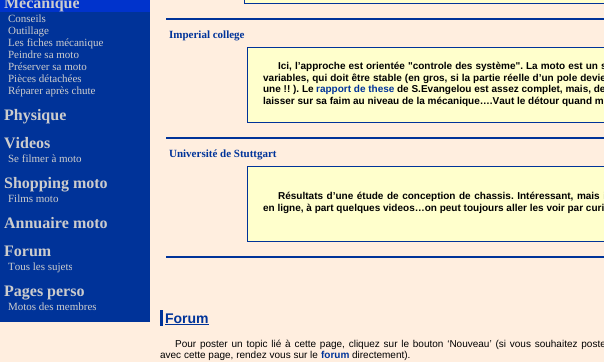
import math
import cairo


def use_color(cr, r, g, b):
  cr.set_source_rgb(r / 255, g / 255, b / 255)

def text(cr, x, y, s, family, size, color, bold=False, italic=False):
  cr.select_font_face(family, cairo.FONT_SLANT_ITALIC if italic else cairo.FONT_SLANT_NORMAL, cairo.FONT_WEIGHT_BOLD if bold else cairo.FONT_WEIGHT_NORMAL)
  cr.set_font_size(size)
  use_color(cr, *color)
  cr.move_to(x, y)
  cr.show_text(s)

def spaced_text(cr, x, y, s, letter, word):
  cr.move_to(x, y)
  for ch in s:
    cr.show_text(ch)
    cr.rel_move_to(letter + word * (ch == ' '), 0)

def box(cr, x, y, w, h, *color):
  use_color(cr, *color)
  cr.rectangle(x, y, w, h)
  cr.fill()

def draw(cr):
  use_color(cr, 255, 238, 223)
  cr.paint()
  box(cr, 0, 12, 150, 310, 0, 51, 153)
  box(cr, 0, 0, 150, 12, 0, 51, 204)
  box(cr, 166, 18, 438, 2, 0, 51, 153)
  use_color(cr, 255, 255, 204)
  cr.rectangle(244.5, -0.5, 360, 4)
  cr.fill_preserve()
  use_color(cr, 0, 51, 153)
  cr.set_line_width(1)
  cr.stroke()
  box(cr, 166, 137, 438, 2, 0, 51, 153)
  use_color(cr, 255, 255, 204)
  cr.rectangle(247.5, 47.5, 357, 75)
  cr.fill_preserve()
  use_color(cr, 0, 51, 153)
  cr.stroke()
  box(cr, 166, 256, 438, 2, 0, 51, 153)
  use_color(cr, 255, 255, 204)
  cr.rectangle(247.5, 166.5, 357, 75)
  cr.fill_preserve()
  use_color(cr, 0, 51, 153)
  cr.stroke()
  box(cr, 160, 310, 3, 16, 0, 51, 153)
  box(cr, 165, 324, 44, 1, 0, 51, 153)
  text(cr, 4, 8, "Mécanique", "Liberation Serif", 16, (204, 204, 204), bold=True)
  text(cr, 8, 22, "Conseils", "Liberation Serif", 11, (204, 204, 204))
  text(cr, 8, 34, "Outillage", "Liberation Serif", 11, (204, 204, 204))
  text(cr, 8, 46, "Les fiches mécanique", "Liberation Serif", 11, (204, 204, 204))
  text(cr, 8, 58, "Peindre sa moto", "Liberation Serif", 11, (204, 204, 204))
  text(cr, 8, 70, "Préserver sa moto", "Liberation Serif", 11, (204, 204, 204))
  text(cr, 8, 82, "Pièces détachées", "Liberation Serif", 11, (204, 204, 204))
  text(cr, 8, 94, "Réparer après chute", "Liberation Serif", 11, (204, 204, 204))
  text(cr, 4, 120, "Physique", "Liberation Serif", 16, (204, 204, 204), bold=True)
  text(cr, 4, 148, "Videos", "Liberation Serif", 16, (204, 204, 204), bold=True)
  text(cr, 8, 162, "Se filmer à moto", "Liberation Serif", 11, (204, 204, 204))
  text(cr, 4, 188, "Shopping moto", "Liberation Serif", 16, (204, 204, 204), bold=True)
  text(cr, 8, 202, "Films moto", "Liberation Serif", 11, (204, 204, 204))
  text(cr, 4, 228, "Annuaire moto", "Liberation Serif", 16, (204, 204, 204), bold=True)
  text(cr, 4, 256, "Forum", "Liberation Serif", 16, (204, 204, 204), bold=True)
  text(cr, 8, 270, "Tous les sujets", "Liberation Serif", 11, (204, 204, 204))
  text(cr, 4, 296, "Pages perso", "Liberation Serif", 16, (204, 204, 204), bold=True)
  text(cr, 8, 310, "Motos des membres", "Liberation Serif", 11, (204, 204, 204))
  text(cr, 169, 38, "Imperial college", "Liberation Serif", 11, (0, 51, 153), bold=True)
  cr.select_font_face("Liberation Sans", cairo.FONT_SLANT_NORMAL, cairo.FONT_WEIGHT_BOLD)
  cr.set_font_size(10)
  use_color(cr, 0, 0, 0)
  spaced_text(cr, 278, 69, "Ici, l’approche est orientée \"controle des système\". La moto est un s", 0, 0.25)
  spaced_text(cr, 263, 81, "variables, qui doit être stable (en gros, si la partie réelle d’un pole devie", 0, 0.25)
  text(cr, 263, 92, "une !! ). Le", "Liberation Sans", 10, (0, 0, 0), bold=True)
  text(cr, 316, 92, "rapport de these", "Liberation Sans", 10, (0, 51, 153), bold=True)
  text(cr, 397, 92, "de S.Evangelou est assez complet, mais, de", "Liberation Sans", 10, (0, 0, 0), bold=True)
  text(cr, 263, 104, "laisser sur sa faim au niveau de la mécanique….Vaut le détour quand m", "Liberation Sans", 10, (0, 0, 0), bold=True)
  text(cr, 169, 157, "Université de Stuttgart", "Liberation Serif", 11, (0, 51, 153), bold=True)
  cr.select_font_face("Liberation Sans", cairo.FONT_SLANT_NORMAL, cairo.FONT_WEIGHT_BOLD)
  cr.set_font_size(10)
  use_color(cr, 0, 0, 0)
  spaced_text(cr, 278, 199, "Résultats d’une étude de conception de chassis. Intéressant, mais i", 0, 0.75)
  text(cr, 263, 211, "en ligne, à part quelques videos…on peut toujours aller les voir par curi", "Liberation Sans", 10, (0, 0, 0), bold=True)
  text(cr, 165, 323, "Forum", "Liberation Sans", 14, (0, 51, 153), bold=True)
  cr.select_font_face("Liberation Sans")
  cr.set_font_size(10)
  use_color(cr, 0, 0, 0)
  spaced_text(cr, 175, 347, "Pour poster un topic lié à cette page, cliquez sur le bouton ‘Nouveau’ (si vous souhaitez poste", 0, 1)
  text(cr, 160, 358, "avec cette page, rendez vous sur le", "Liberation Sans", 10, (0, 0, 0))
  text(cr, 321, 358, "forum", "Liberation Sans", 10, (0, 51, 153), bold=True)
  text(cr, 352, 358, "directement).", "Liberation Sans", 10, (0, 0, 0))


surface = cairo.ImageSurface(cairo.FORMAT_RGB24, 604, 362)
cr = cairo.Context(surface)
options = cairo.FontOptions()
options.set_hint_metrics(cairo.HINT_METRICS_OFF)
options.set_hint_style(cairo.HINT_STYLE_NONE)
cr.set_font_options(options)
cr.set_miter_limit(4)
draw(cr)
surface.write_to_png("out.png")
